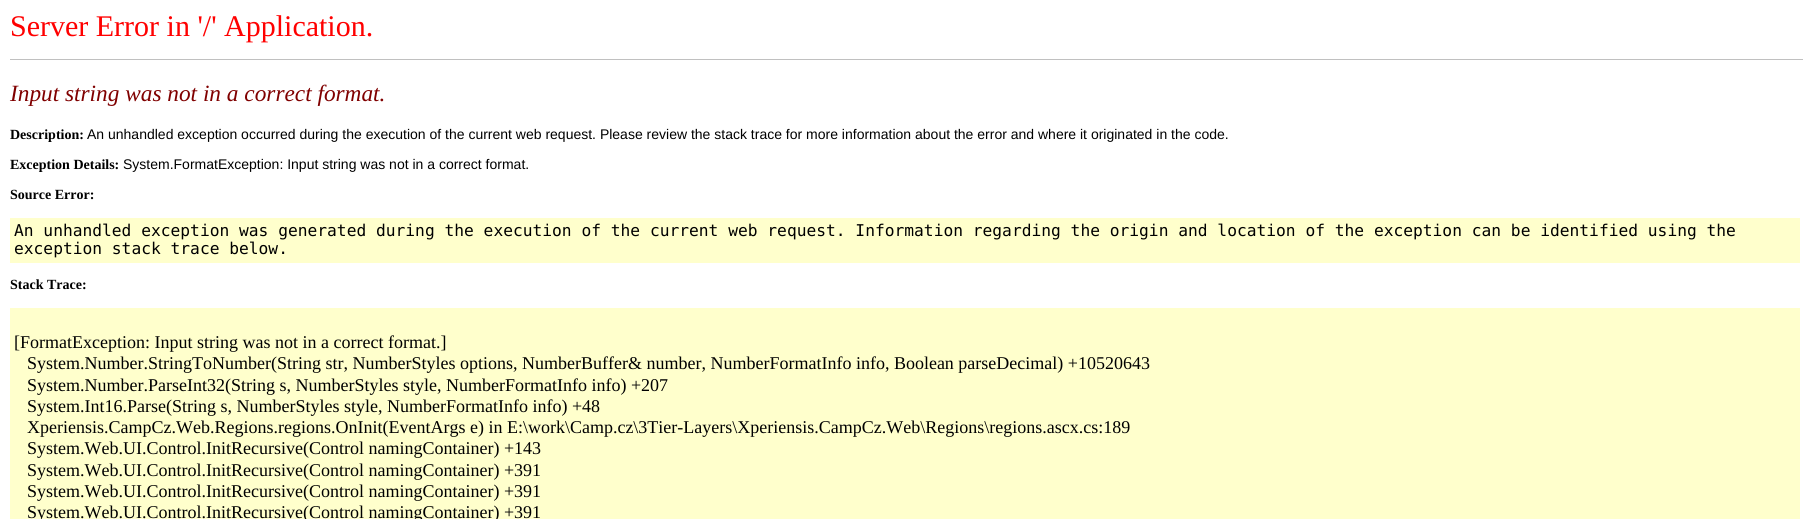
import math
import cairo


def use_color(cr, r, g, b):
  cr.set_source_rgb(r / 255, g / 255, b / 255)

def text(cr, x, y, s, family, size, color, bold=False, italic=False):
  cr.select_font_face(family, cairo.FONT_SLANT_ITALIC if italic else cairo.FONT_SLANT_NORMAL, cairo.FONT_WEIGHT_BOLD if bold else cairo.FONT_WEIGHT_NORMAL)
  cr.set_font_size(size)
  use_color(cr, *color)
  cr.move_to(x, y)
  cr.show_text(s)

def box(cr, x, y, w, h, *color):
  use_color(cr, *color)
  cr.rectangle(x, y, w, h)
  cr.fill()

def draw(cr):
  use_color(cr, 255, 255, 255)
  cr.paint()
  box(cr, 10, 59, 1793, 1, 192, 192, 192)
  box(cr, 10, 218, 1790, 45, 255, 255, 204)
  box(cr, 10, 308, 1790, 211, 255, 255, 204)
  text(cr, 10, 36, "Server Error in '/' Application.", "Liberation Serif", 30, (255, 0, 0))
  text(cr, 10, 101, "Input string was not in a correct format.", "Liberation Serif", 23.3, (128, 0, 0), italic=True)
  text(cr, 10, 139, "Description:", "Liberation Serif", 14, (0, 0, 0), bold=True)
  text(cr, 87, 139, "An unhandled exception occurred during the execution of the current web request. Please review the stack trace for more information about the error and where it originated in the code.", "Liberation Sans", 14, (0, 0, 0))
  text(cr, 10, 169, "Exception Details:", "Liberation Serif", 14, (0, 0, 0), bold=True)
  text(cr, 123, 169, "System.FormatException: Input string was not in a correct format.", "Liberation Sans", 14, (0, 0, 0))
  text(cr, 10, 199, "Source Error:", "Liberation Serif", 14, (0, 0, 0), bold=True)
  text(cr, 14, 236, "An unhandled exception was generated during the execution of the current web request. Information regarding the origin and location of the exception can be identified using the", "DejaVu Sans Mono", 16.25, (0, 0, 0))
  text(cr, 14, 254, "exception stack trace below.", "DejaVu Sans Mono", 16.25, (0, 0, 0))
  text(cr, 10, 289, "Stack Trace:", "Liberation Serif", 14, (0, 0, 0), bold=True)
  text(cr, 14, 348, "[FormatException: Input string was not in a correct format.]", "Liberation Serif", 18, (0, 0, 0))
  text(cr, 27, 369, "System.Number.StringToNumber(String str, NumberStyles options, NumberBuffer& number, NumberFormatInfo info, Boolean parseDecimal) +10520643", "Liberation Serif", 18, (0, 0, 0))
  text(cr, 27, 391, "System.Number.ParseInt32(String s, NumberStyles style, NumberFormatInfo info) +207", "Liberation Serif", 18, (0, 0, 0))
  text(cr, 27, 412, "System.Int16.Parse(String s, NumberStyles style, NumberFormatInfo info) +48", "Liberation Serif", 18, (0, 0, 0))
  text(cr, 27, 433, "Xperiensis.CampCz.Web.Regions.regions.OnInit(EventArgs e) in E:\\work\\Camp.cz\\3Tier-Layers\\Xperiensis.CampCz.Web\\Regions\\regions.ascx.cs:189", "Liberation Serif", 18, (0, 0, 0))
  text(cr, 27, 454, "System.Web.UI.Control.InitRecursive(Control namingContainer) +143", "Liberation Serif", 18, (0, 0, 0))
  text(cr, 27, 476, "System.Web.UI.Control.InitRecursive(Control namingContainer) +391", "Liberation Serif", 18, (0, 0, 0))
  text(cr, 27, 497, "System.Web.UI.Control.InitRecursive(Control namingContainer) +391", "Liberation Serif", 18, (0, 0, 0))
  text(cr, 27, 518, "System.Web.UI.Control.InitRecursive(Control namingContainer) +391", "Liberation Serif", 18, (0, 0, 0))


surface = cairo.ImageSurface(cairo.FORMAT_RGB24, 1810, 519)
cr = cairo.Context(surface)
options = cairo.FontOptions()
options.set_hint_metrics(cairo.HINT_METRICS_OFF)
options.set_hint_style(cairo.HINT_STYLE_NONE)
cr.set_font_options(options)
cr.set_miter_limit(4)
draw(cr)
surface.write_to_png("out.png")
